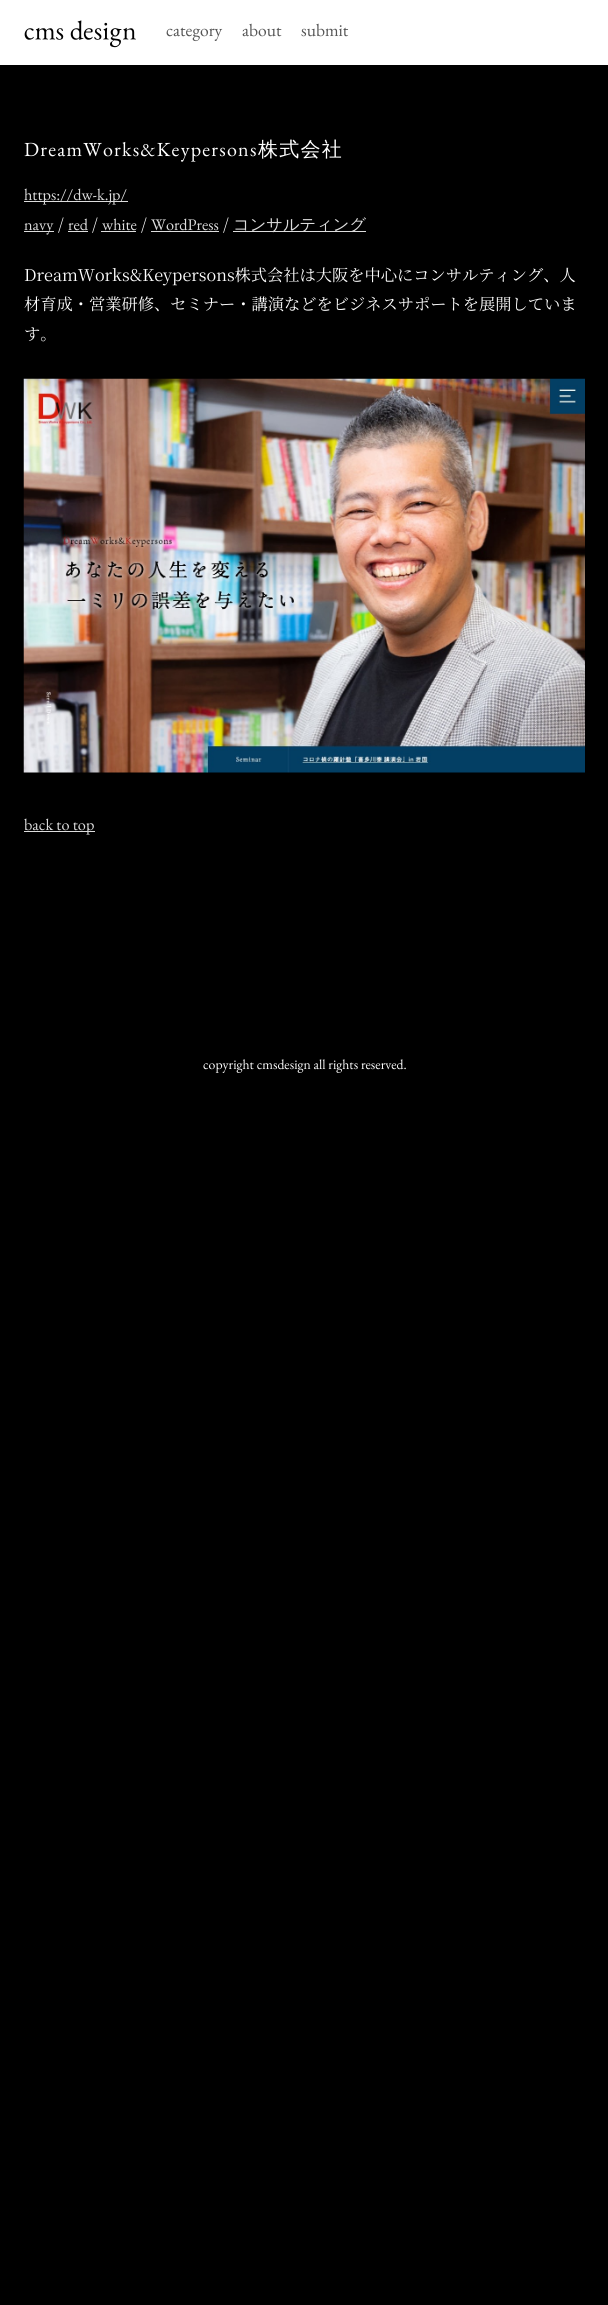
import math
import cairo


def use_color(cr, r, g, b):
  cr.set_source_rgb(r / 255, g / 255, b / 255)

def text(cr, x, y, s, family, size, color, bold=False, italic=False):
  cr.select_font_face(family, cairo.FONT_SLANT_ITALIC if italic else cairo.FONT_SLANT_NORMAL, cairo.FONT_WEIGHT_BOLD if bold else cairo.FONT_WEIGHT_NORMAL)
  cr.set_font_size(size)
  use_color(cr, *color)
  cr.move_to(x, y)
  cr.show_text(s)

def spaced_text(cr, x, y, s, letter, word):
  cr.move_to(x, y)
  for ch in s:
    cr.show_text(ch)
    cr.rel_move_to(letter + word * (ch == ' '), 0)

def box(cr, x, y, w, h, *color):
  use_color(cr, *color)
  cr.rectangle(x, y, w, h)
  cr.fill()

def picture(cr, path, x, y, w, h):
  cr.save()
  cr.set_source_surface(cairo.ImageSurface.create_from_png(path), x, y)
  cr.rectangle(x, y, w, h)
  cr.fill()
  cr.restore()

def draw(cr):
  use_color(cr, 0, 0, 0)
  cr.paint()
  box(cr, 0, 0, 608, 65, 255, 255, 255)
  picture(cr, "img_01.png", 24, 20, 112, 28)
  box(cr, 24, 201, 104, 1, 221, 221, 221)
  box(cr, 24, 231, 30, 1, 221, 221, 221)
  box(cr, 68, 231, 20, 1, 221, 221, 221)
  box(cr, 101, 231, 35, 1, 221, 221, 221)
  box(cr, 151, 231, 68, 1, 221, 221, 221)
  box(cr, 233, 231, 133, 1, 221, 221, 221)
  picture(cr, "img_02.png", 23, 378, 562, 395)
  box(cr, 24, 831, 71, 1, 221, 221, 221)
  text(cr, 166, 36, "category", "EB Garamond", 17.5, (85, 85, 85))
  text(cr, 242, 36, "about", "EB Garamond", 17.5, (85, 85, 85))
  text(cr, 301, 36, "submit", "EB Garamond", 17.5, (85, 85, 85))
  cr.set_font_size(20)
  use_color(cr, 255, 255, 255)
  spaced_text(cr, 24, 156, "DreamWorks&Keypersons", 1.25, 0)
  cr.select_font_face("WenQuanYi Zen Hei Medium")
  spaced_text(cr, 258, 156, "株式会社", 1.25, 0)
  text(cr, 24, 200, "https://dw-k.jp/", "EB Garamond", 16.25, (221, 221, 221))
  text(cr, 24, 230, "navy", "EB Garamond", 16.25, (221, 221, 221))
  text(cr, 58, 230, "/", "Noto Serif JP ExtraLight", 16.25, (255, 255, 255))
  text(cr, 68, 230, "red", "EB Garamond", 16.25, (221, 221, 221))
  text(cr, 92, 230, "/", "Noto Serif JP ExtraLight", 16.25, (255, 255, 255))
  text(cr, 102, 230, "white", "EB Garamond", 16.25, (221, 221, 221))
  text(cr, 141, 230, "/", "Noto Serif JP ExtraLight", 16.25, (255, 255, 255))
  text(cr, 151, 230, "WordPress", "EB Garamond", 16.25, (221, 221, 221))
  text(cr, 223, 230, "/", "Noto Serif JP ExtraLight", 16.25, (255, 255, 255))
  text(cr, 233, 230, "コンサルティング", "WenQuanYi Zen Hei Medium", 16.25, (221, 221, 221))
  text(cr, 24, 281, "DreamWorks&Keypersons株式会社は大阪を中心にコンサルティング、人", "Noto Serif JP ExtraLight", 16.25, (255, 255, 255))
  text(cr, 24, 310, "材育成・営業研修、セミナー・講演などをビジネスサポートを展開していま", "Noto Serif JP ExtraLight", 16.25, (255, 255, 255))
  text(cr, 24, 340, "す。", "Noto Serif JP ExtraLight", 16.25, (255, 255, 255))
  text(cr, 24, 830, "back to top", "EB Garamond", 16.25, (221, 221, 221))
  text(cr, 203, 1069, "copyright cmsdesign all rights reserved.", "EB Garamond", 13.75, (255, 255, 255))


surface = cairo.ImageSurface(cairo.FORMAT_RGB24, 608, 2305)
cr = cairo.Context(surface)
options = cairo.FontOptions()
options.set_hint_metrics(cairo.HINT_METRICS_OFF)
options.set_hint_style(cairo.HINT_STYLE_NONE)
cr.set_font_options(options)
cr.set_miter_limit(4)
draw(cr)
surface.write_to_png("out.png")
